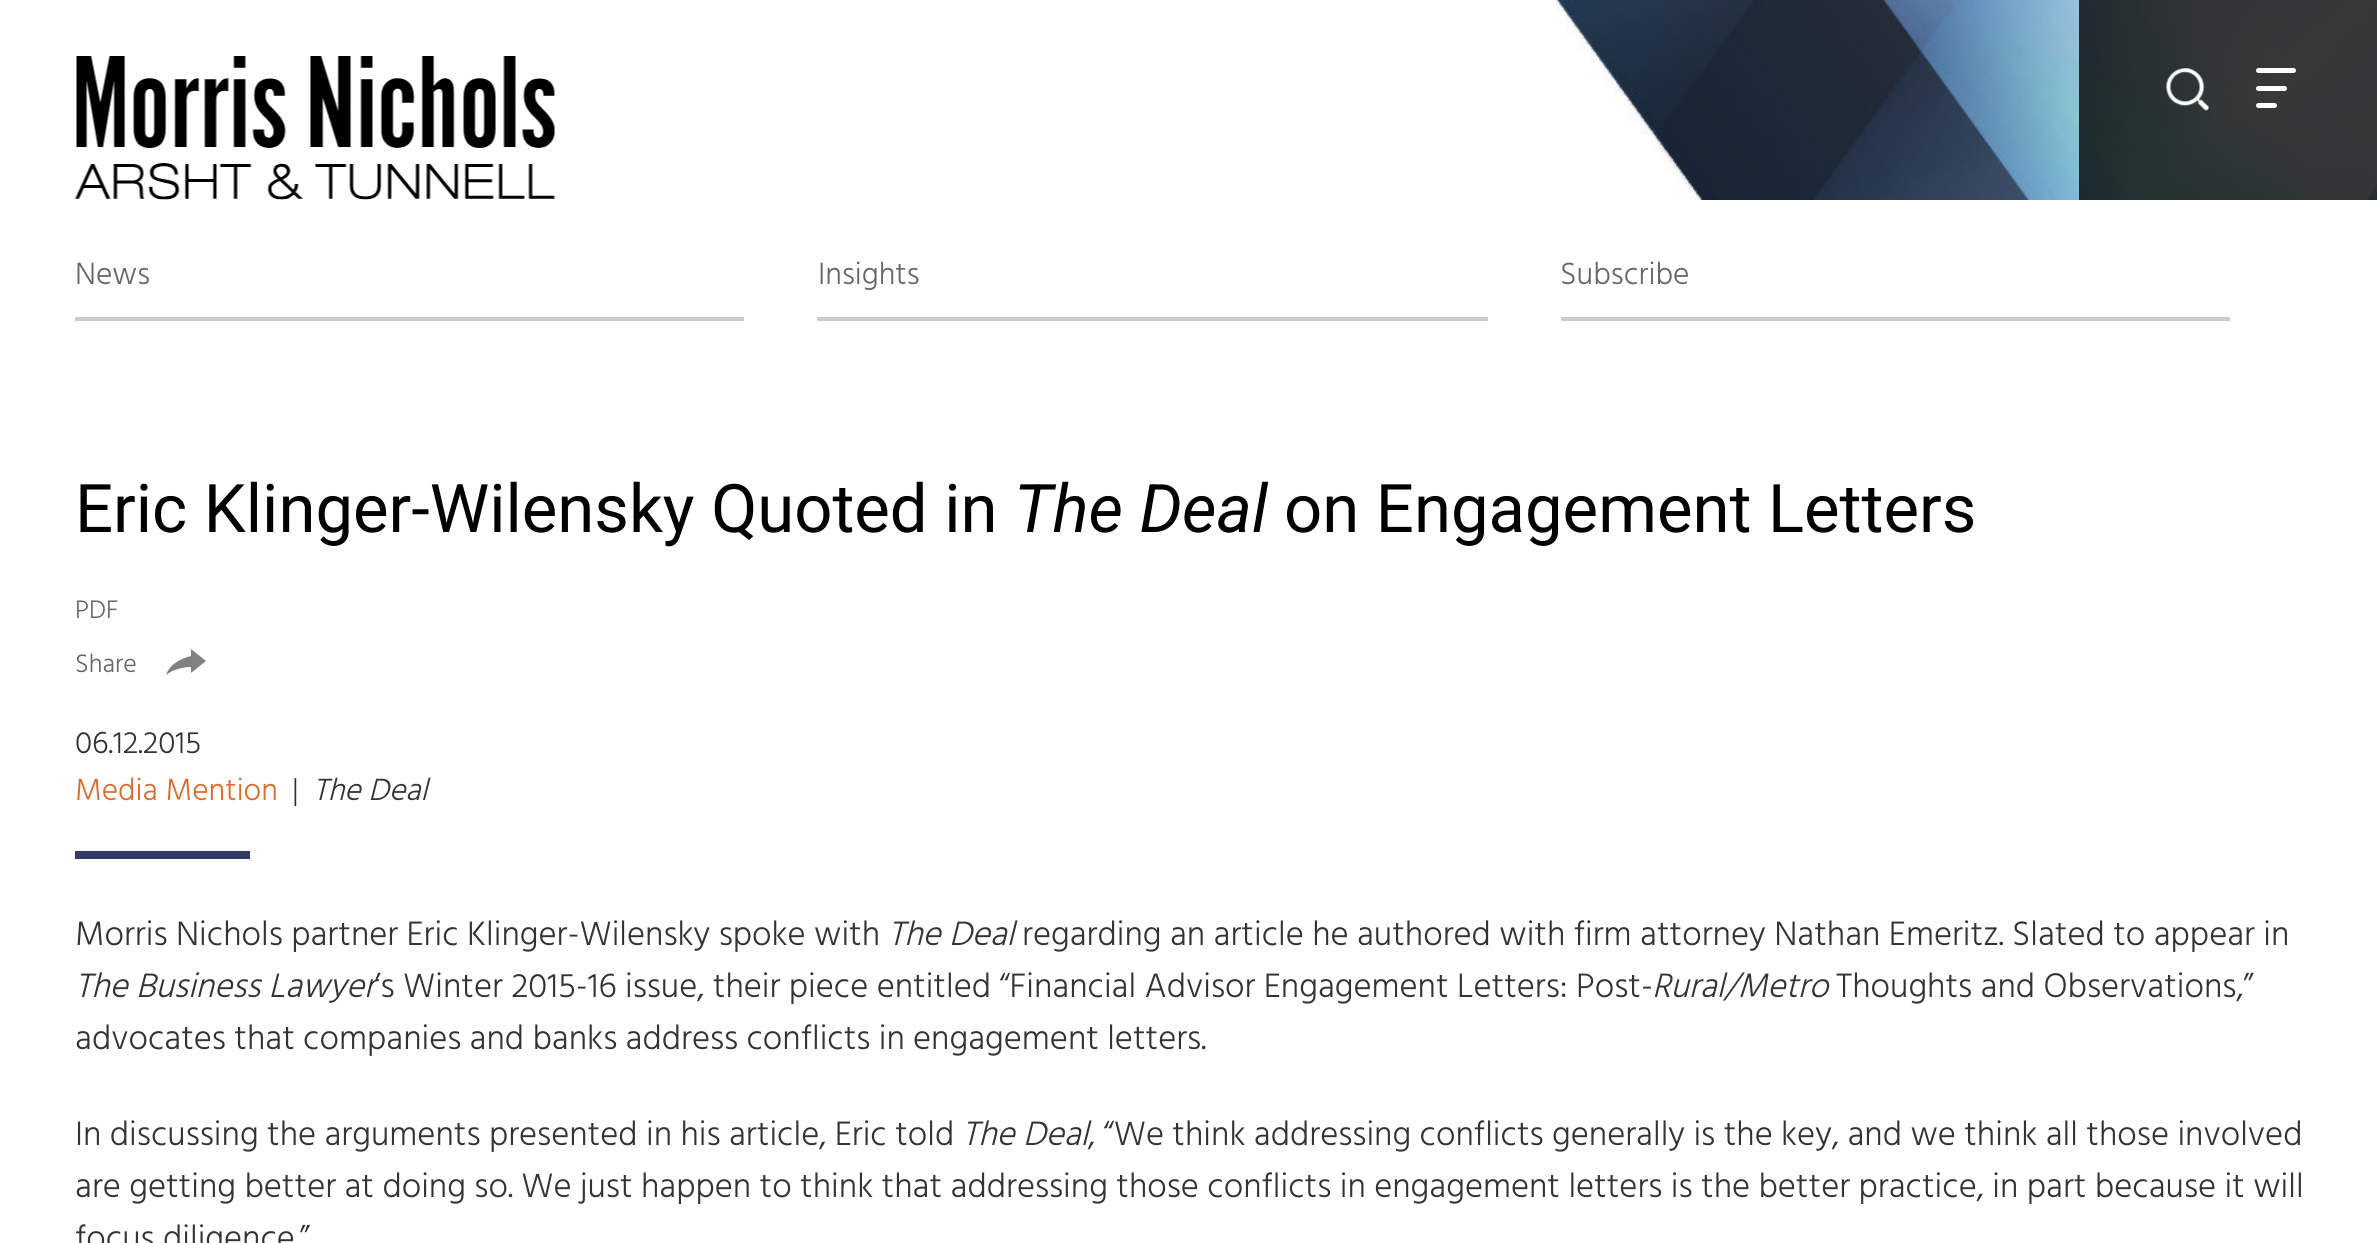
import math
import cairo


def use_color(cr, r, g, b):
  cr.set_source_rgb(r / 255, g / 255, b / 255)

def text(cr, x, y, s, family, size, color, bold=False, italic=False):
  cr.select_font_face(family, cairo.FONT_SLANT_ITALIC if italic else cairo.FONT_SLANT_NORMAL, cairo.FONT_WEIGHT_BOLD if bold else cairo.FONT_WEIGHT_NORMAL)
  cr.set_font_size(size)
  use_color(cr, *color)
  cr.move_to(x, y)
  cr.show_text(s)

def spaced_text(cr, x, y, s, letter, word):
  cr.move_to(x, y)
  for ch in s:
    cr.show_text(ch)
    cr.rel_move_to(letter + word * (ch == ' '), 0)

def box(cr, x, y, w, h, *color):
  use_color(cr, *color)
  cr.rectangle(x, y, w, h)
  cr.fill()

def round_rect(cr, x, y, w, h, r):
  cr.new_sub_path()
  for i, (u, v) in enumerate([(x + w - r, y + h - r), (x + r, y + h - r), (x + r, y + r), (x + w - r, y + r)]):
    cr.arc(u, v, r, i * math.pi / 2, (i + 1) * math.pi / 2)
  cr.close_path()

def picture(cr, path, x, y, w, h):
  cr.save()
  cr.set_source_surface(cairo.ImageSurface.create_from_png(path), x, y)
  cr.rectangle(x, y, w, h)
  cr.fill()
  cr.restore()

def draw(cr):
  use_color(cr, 255, 255, 255)
  cr.paint()
  picture(cr, "img_03.png", 1553, 0, 824, 200)
  cr.set_source_rgba(0.004, 0.004, 0.004, 0.78)
  cr.rectangle(2079, 0, 298, 200)
  cr.fill()
  picture(cr, "img_01.png", 75, 56, 480, 144)
  picture(cr, "img_02.png", 2166, 68, 43, 43)
  use_color(cr, 255, 255, 255)
  round_rect(cr, 2256, 103, 21, 5, 2.5)
  cr.fill()
  round_rect(cr, 2256, 68, 40, 5, 2.5)
  cr.fill()
  round_rect(cr, 2256, 86, 31, 5, 2.5)
  cr.fill()
  box(cr, 75, 317, 669, 4, 204, 204, 204)
  box(cr, 817, 317, 671, 4, 204, 204, 204)
  box(cr, 1561, 317, 669, 4, 204, 204, 204)
  use_color(cr, 129, 129, 129)
  cr.new_path()
  cr.move_to(191, 649)
  cr.line_to(206, 661)
  cr.line_to(191, 673)
  cr.line_to(191, 667)
  cr.curve_to(190, 667, 176, 667, 166, 675)
  cr.curve_to(170, 663, 183, 658, 191, 656)
  cr.close_path()
  cr.fill()
  box(cr, 75, 851, 175, 8, 51, 59, 105)
  text(cr, 75, 284, "News", "Hind Light", 31.5, (102, 102, 102))
  text(cr, 818, 284, "Insights", "Hind Light", 31.5, (102, 102, 102))
  text(cr, 1560, 284, "Subscribe", "Hind Light", 31.5, (102, 102, 102))
  text(cr, 75, 532, "Eric Klinger-Wilensky Quoted in", "Roboto", 67, (0, 0, 0))
  text(cr, 1014, 532, "The Deal", "Roboto", 67, (0, 0, 0), italic=True)
  text(cr, 1284, 532, "on Engagement Letters", "Roboto", 67, (0, 0, 0))
  text(cr, 75, 618, "PDF", "Hind Light", 26, (102, 102, 102))
  text(cr, 75, 672, "Share", "Hind Light", 26, (102, 102, 102))
  text(cr, 75, 753, "06.12.2015", "Hind Light", 31.5, (51, 51, 51))
  text(cr, 75, 800, "Media Mention", "Hind Light", 31.5, (216, 108, 48))
  text(cr, 292, 800, "|", "Hind Light", 31.5, (51, 51, 51))
  text(cr, 313, 800, "The Deal", "Hind Light", 31.5, (51, 51, 51), italic=True)
  text(cr, 75, 945, "Morris Nichols partner Eric Klinger-Wilensky spoke with", "Hind Light", 34.73, (51, 51, 51))
  text(cr, 888, 945, "The Deal", "Hind Light", 34.73, (51, 51, 51), italic=True)
  text(cr, 1022, 945, "regarding an article he authored with firm attorney Nathan Emeritz. Slated to appear in", "Hind Light", 34.73, (51, 51, 51))
  text(cr, 75, 997, "The Business Lawyer", "Hind Light", 34.73, (51, 51, 51), italic=True)
  text(cr, 375, 997, "’s Winter 2015-16 issue, their piece entitled “Financial Advisor Engagement Letters: Post-", "Hind Light", 34.73, (51, 51, 51))
  text(cr, 1652, 997, "Rural/Metro", "Hind Light", 34.73, (51, 51, 51), italic=True)
  text(cr, 1836, 997, "Thoughts and Observations,”", "Hind Light", 34.73, (51, 51, 51))
  spaced_text(cr, 75, 1049, "advocates that companies and banks address conflicts in engagement letters.", 0, -0.1)
  text(cr, 75, 1145, "In discussing the arguments presented in his article, Eric told", "Hind Light", 34.73, (51, 51, 51))
  text(cr, 962, 1145, "The Deal", "Hind Light", 34.73, (51, 51, 51), italic=True)
  text(cr, 1088, 1145, ", “We think addressing conflicts generally is the key, and we think all those involved", "Hind Light", 34.73, (51, 51, 51))
  text(cr, 75, 1197, "are getting better at doing so. We just happen to think that addressing those conflicts in engagement letters is the better practice, in part because it will", "Hind Light", 34.73, (51, 51, 51))
  text(cr, 75, 1249, "focus diligence.”", "Hind Light", 34.73, (51, 51, 51))


surface = cairo.ImageSurface(cairo.FORMAT_RGB24, 2377, 1243)
cr = cairo.Context(surface)
options = cairo.FontOptions()
options.set_hint_metrics(cairo.HINT_METRICS_OFF)
options.set_hint_style(cairo.HINT_STYLE_NONE)
cr.set_font_options(options)
cr.set_miter_limit(4)
draw(cr)
surface.write_to_png("out.png")
